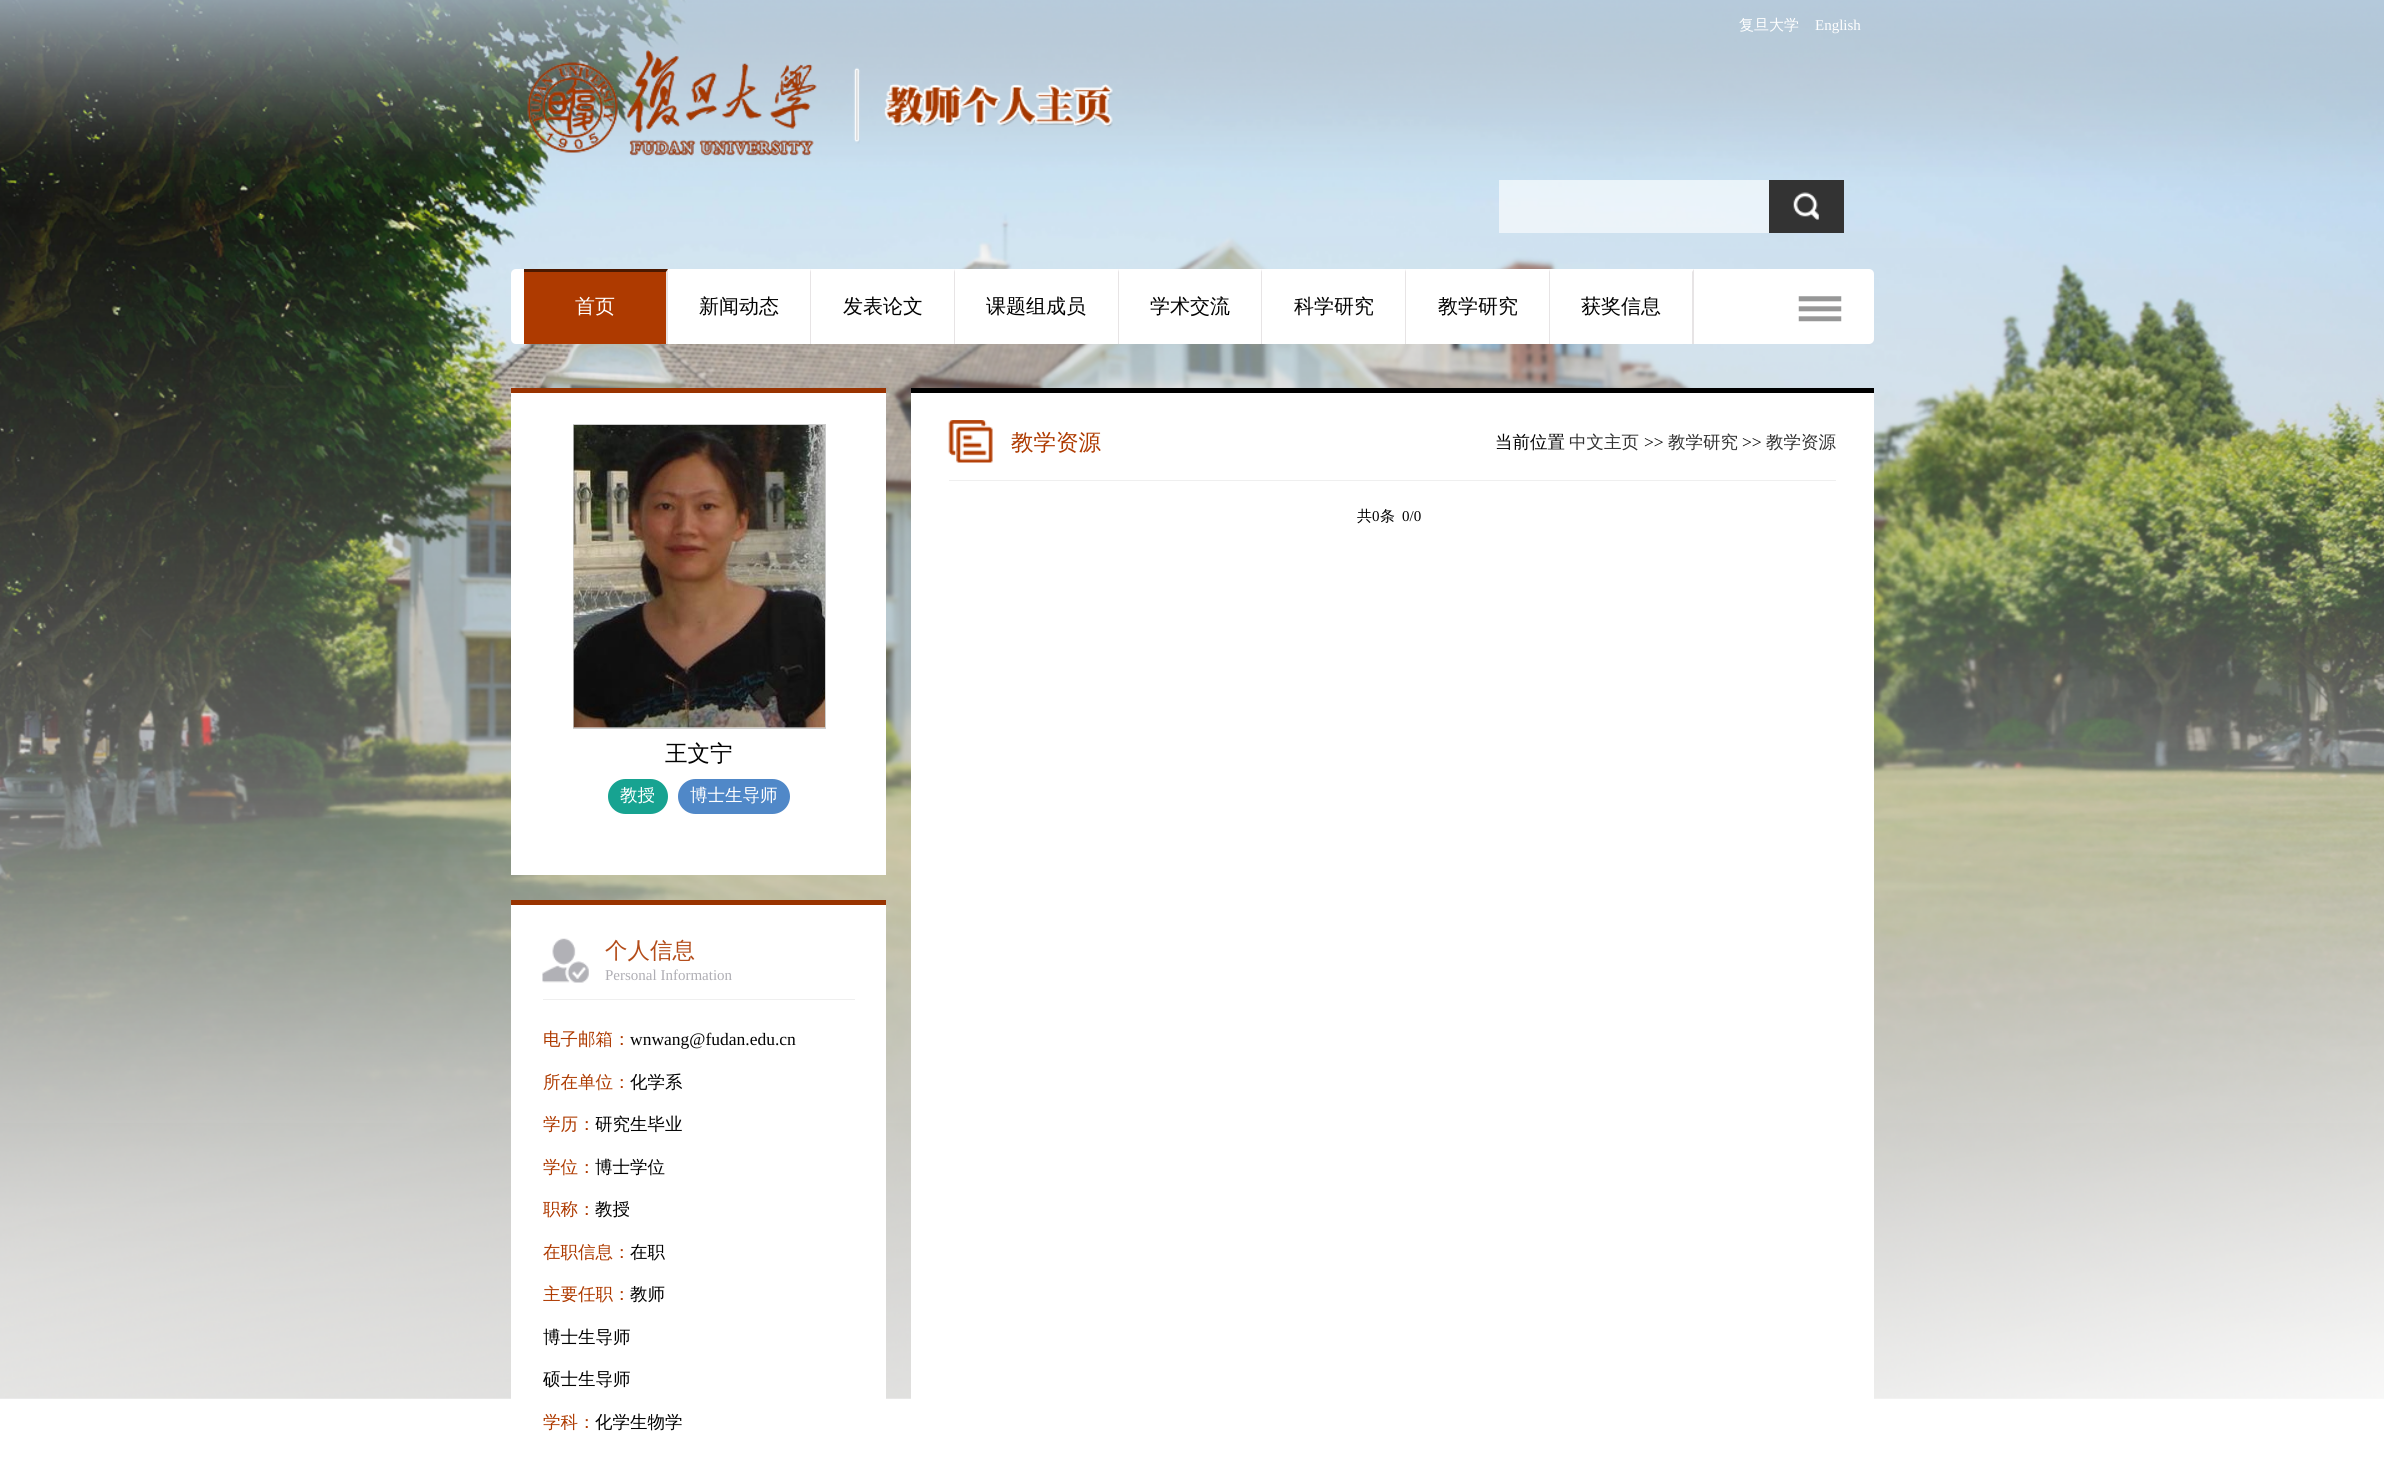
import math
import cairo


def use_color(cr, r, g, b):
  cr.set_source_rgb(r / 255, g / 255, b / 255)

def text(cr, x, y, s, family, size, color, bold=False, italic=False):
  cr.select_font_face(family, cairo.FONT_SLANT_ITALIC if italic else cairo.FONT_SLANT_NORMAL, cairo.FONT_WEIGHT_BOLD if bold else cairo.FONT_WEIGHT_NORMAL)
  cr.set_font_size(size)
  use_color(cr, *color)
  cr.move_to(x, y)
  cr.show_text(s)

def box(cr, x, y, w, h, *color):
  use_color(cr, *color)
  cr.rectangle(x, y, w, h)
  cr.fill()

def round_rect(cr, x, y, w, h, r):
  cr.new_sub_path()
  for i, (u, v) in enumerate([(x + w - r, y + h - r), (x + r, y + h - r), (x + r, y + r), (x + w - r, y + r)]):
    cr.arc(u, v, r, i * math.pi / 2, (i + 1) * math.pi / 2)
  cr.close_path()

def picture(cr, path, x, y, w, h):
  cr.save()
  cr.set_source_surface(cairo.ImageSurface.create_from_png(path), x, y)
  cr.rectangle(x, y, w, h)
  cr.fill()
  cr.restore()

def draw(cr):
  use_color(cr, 255, 255, 255)
  cr.paint()
  picture(cr, "img_01.png", 0, 1123, 2384, 276)
  picture(cr, "img_02.png", 0, 0, 2384, 1123)
  picture(cr, "img_03.png", 527, 50, 586, 106)
  cr.set_source_rgba(1, 1, 1, 0.6)
  cr.rectangle(1499, 180, 270, 53)
  cr.fill()
  box(cr, 1769, 180, 75, 53, 51, 51, 51)
  picture(cr, "img_04.png", 1793, 192, 26, 28)
  use_color(cr, 255, 255, 255)
  round_rect(cr, 511, 269, 1363, 75, 5)
  cr.fill()
  box(cr, 524, 269, 144, 75, 174, 58, 0)
  use_color(cr, 75, 25, 0)
  cr.new_path()
  cr.move_to(524, 269)
  cr.line_to(668, 269)
  cr.line_to(666, 272)
  cr.line_to(524, 272)
  cr.close_path()
  cr.fill()
  use_color(cr, 231, 228, 229)
  cr.new_path()
  cr.move_to(668, 269)
  cr.line_to(668, 344)
  cr.line_to(666, 344)
  cr.line_to(666, 272)
  cr.close_path()
  cr.fill()
  cr.new_path()
  cr.move_to(811, 269)
  cr.line_to(811, 344)
  cr.line_to(810, 344)
  cr.line_to(810, 272)
  cr.close_path()
  cr.fill()
  cr.new_path()
  cr.move_to(955, 269)
  cr.line_to(955, 344)
  cr.line_to(954, 344)
  cr.line_to(954, 272)
  cr.close_path()
  cr.fill()
  cr.new_path()
  cr.move_to(1119, 269)
  cr.line_to(1119, 344)
  cr.line_to(1118, 344)
  cr.line_to(1118, 272)
  cr.close_path()
  cr.fill()
  cr.new_path()
  cr.move_to(1262, 269)
  cr.line_to(1262, 344)
  cr.line_to(1261, 344)
  cr.line_to(1261, 272)
  cr.close_path()
  cr.fill()
  cr.new_path()
  cr.move_to(1406, 269)
  cr.line_to(1406, 344)
  cr.line_to(1405, 344)
  cr.line_to(1405, 272)
  cr.close_path()
  cr.fill()
  cr.new_path()
  cr.move_to(1550, 269)
  cr.line_to(1550, 344)
  cr.line_to(1549, 344)
  cr.line_to(1549, 272)
  cr.close_path()
  cr.fill()
  cr.new_path()
  cr.move_to(1694, 269)
  cr.line_to(1694, 344)
  cr.line_to(1692, 344)
  cr.line_to(1692, 272)
  cr.close_path()
  cr.fill()
  picture(cr, "img_05.png", 1798, 296, 44, 26)
  box(cr, 911, 393, 963, 1006, 255, 255, 255)
  box(cr, 911, 388, 963, 5, 0, 0, 0)
  box(cr, 949, 480, 887, 1, 239, 239, 239)
  picture(cr, "img_06.png", 948, 420, 45, 43)
  box(cr, 511, 393, 375, 482, 255, 255, 255)
  box(cr, 511, 388, 375, 5, 153, 51, 0)
  cr.rectangle(573.5, 424.5, 252, 304)
  use_color(cr, 204, 204, 204)
  cr.set_line_width(1)
  cr.stroke()
  picture(cr, "img_07.png", 573, 425, 252, 303)
  use_color(cr, 23, 163, 145)
  round_rect(cr, 608, 779, 60, 35, 17.5)
  cr.fill()
  use_color(cr, 80, 136, 200)
  round_rect(cr, 678, 779, 112, 35, 17.5)
  cr.fill()
  box(cr, 511, 905, 375, 494, 255, 255, 255)
  box(cr, 511, 900, 375, 5, 153, 51, 0)
  picture(cr, "img_08.png", 542, 938, 47, 45)
  box(cr, 543, 999, 312, 1, 239, 239, 239)
  text(cr, 1739, 30, "复旦大学", "WenQuanYi Zen Hei Medium", 15, (255, 255, 255))
  text(cr, 1815, 30, "English", "Liberation Serif", 15, (255, 255, 255))
  text(cr, 575, 313, "首页", "WenQuanYi Zen Hei Medium", 20, (255, 255, 255))
  text(cr, 699, 313, "新闻动态", "WenQuanYi Zen Hei Medium", 20, (2, 2, 2))
  text(cr, 843, 313, "发表论文", "WenQuanYi Zen Hei Medium", 20, (2, 2, 2))
  text(cr, 986, 313, "课题组成员", "WenQuanYi Zen Hei Medium", 20, (2, 2, 2))
  text(cr, 1150, 313, "学术交流", "WenQuanYi Zen Hei Medium", 20, (2, 2, 2))
  text(cr, 1294, 313, "科学研究", "WenQuanYi Zen Hei Medium", 20, (2, 2, 2))
  text(cr, 1438, 313, "教学研究", "WenQuanYi Zen Hei Medium", 20, (2, 2, 2))
  text(cr, 1581, 313, "获奖信息", "WenQuanYi Zen Hei Medium", 20, (2, 2, 2))
  text(cr, 1011, 450, "教学资源", "WenQuanYi Zen Hei Medium", 22.5, (174, 58, 0))
  text(cr, 1495, 448, "当前位置", "WenQuanYi Zen Hei Medium", 17.5, (2, 2, 2))
  text(cr, 1569, 448, "中文主页", "WenQuanYi Zen Hei Medium", 17.5, (51, 51, 51))
  text(cr, 1644, 448, ">>", "Liberation Serif", 17.5, (2, 2, 2))
  text(cr, 1668, 448, "教学研究", "WenQuanYi Zen Hei Medium", 17.5, (51, 51, 51))
  text(cr, 1742, 448, ">>", "Liberation Serif", 17.5, (2, 2, 2))
  text(cr, 1766, 448, "教学资源", "WenQuanYi Zen Hei Medium", 17.5, (51, 51, 51))
  text(cr, 1357, 521, "共", "WenQuanYi Zen Hei Medium", 15, (2, 2, 2))
  text(cr, 1372, 521, "0", "Liberation Serif", 15, (2, 2, 2))
  text(cr, 1380, 521, "条", "WenQuanYi Zen Hei Medium", 15, (2, 2, 2))
  text(cr, 1402, 521, "0/0", "Liberation Serif", 15, (2, 2, 2))
  text(cr, 665, 761, "王文宁", "WenQuanYi Zen Hei Medium", 22.5, (2, 2, 2))
  text(cr, 620, 801, "教授", "WenQuanYi Zen Hei Medium", 17.5, (255, 255, 255))
  text(cr, 690, 801, "博士生导师", "WenQuanYi Zen Hei Medium", 17.5, (255, 255, 255))
  text(cr, 605, 958, "个人信息", "WenQuanYi Zen Hei Medium", 22.5, (179, 76, 25))
  text(cr, 605, 980, "Personal Information", "Liberation Serif", 15, (175, 174, 180))
  text(cr, 543, 1045, "电子邮箱：", "WenQuanYi Zen Hei Medium", 17.5, (174, 58, 0))
  text(cr, 630, 1045, "wnwang@fudan.edu.cn", "Liberation Serif", 17.5, (2, 2, 2))
  text(cr, 543, 1088, "所在单位：", "WenQuanYi Zen Hei Medium", 17.5, (174, 58, 0))
  text(cr, 630, 1088, "化学系", "WenQuanYi Zen Hei Medium", 17.5, (2, 2, 2))
  text(cr, 543, 1130, "学历：", "WenQuanYi Zen Hei Medium", 17.5, (174, 58, 0))
  text(cr, 595, 1130, "研究生毕业", "WenQuanYi Zen Hei Medium", 17.5, (2, 2, 2))
  text(cr, 543, 1173, "学位：", "WenQuanYi Zen Hei Medium", 17.5, (174, 58, 0))
  text(cr, 595, 1173, "博士学位", "WenQuanYi Zen Hei Medium", 17.5, (2, 2, 2))
  text(cr, 543, 1215, "职称：", "WenQuanYi Zen Hei Medium", 17.5, (174, 58, 0))
  text(cr, 595, 1215, "教授", "WenQuanYi Zen Hei Medium", 17.5, (2, 2, 2))
  text(cr, 543, 1258, "在职信息：", "WenQuanYi Zen Hei Medium", 17.5, (174, 58, 0))
  text(cr, 630, 1258, "在职", "WenQuanYi Zen Hei Medium", 17.5, (2, 2, 2))
  text(cr, 543, 1300, "主要任职：", "WenQuanYi Zen Hei Medium", 17.5, (174, 58, 0))
  text(cr, 630, 1300, "教师", "WenQuanYi Zen Hei Medium", 17.5, (2, 2, 2))
  text(cr, 543, 1343, "博士生导师", "WenQuanYi Zen Hei Medium", 17.5, (2, 2, 2))
  text(cr, 543, 1385, "硕士生导师", "WenQuanYi Zen Hei Medium", 17.5, (2, 2, 2))
  text(cr, 543, 1428, "学科：", "WenQuanYi Zen Hei Medium", 17.5, (174, 58, 0))
  text(cr, 595, 1428, "化学生物学", "WenQuanYi Zen Hei Medium", 17.5, (2, 2, 2))


surface = cairo.ImageSurface(cairo.FORMAT_RGB24, 2384, 1466)
cr = cairo.Context(surface)
options = cairo.FontOptions()
options.set_hint_metrics(cairo.HINT_METRICS_OFF)
options.set_hint_style(cairo.HINT_STYLE_NONE)
cr.set_font_options(options)
cr.set_miter_limit(4)
draw(cr)
surface.write_to_png("out.png")
